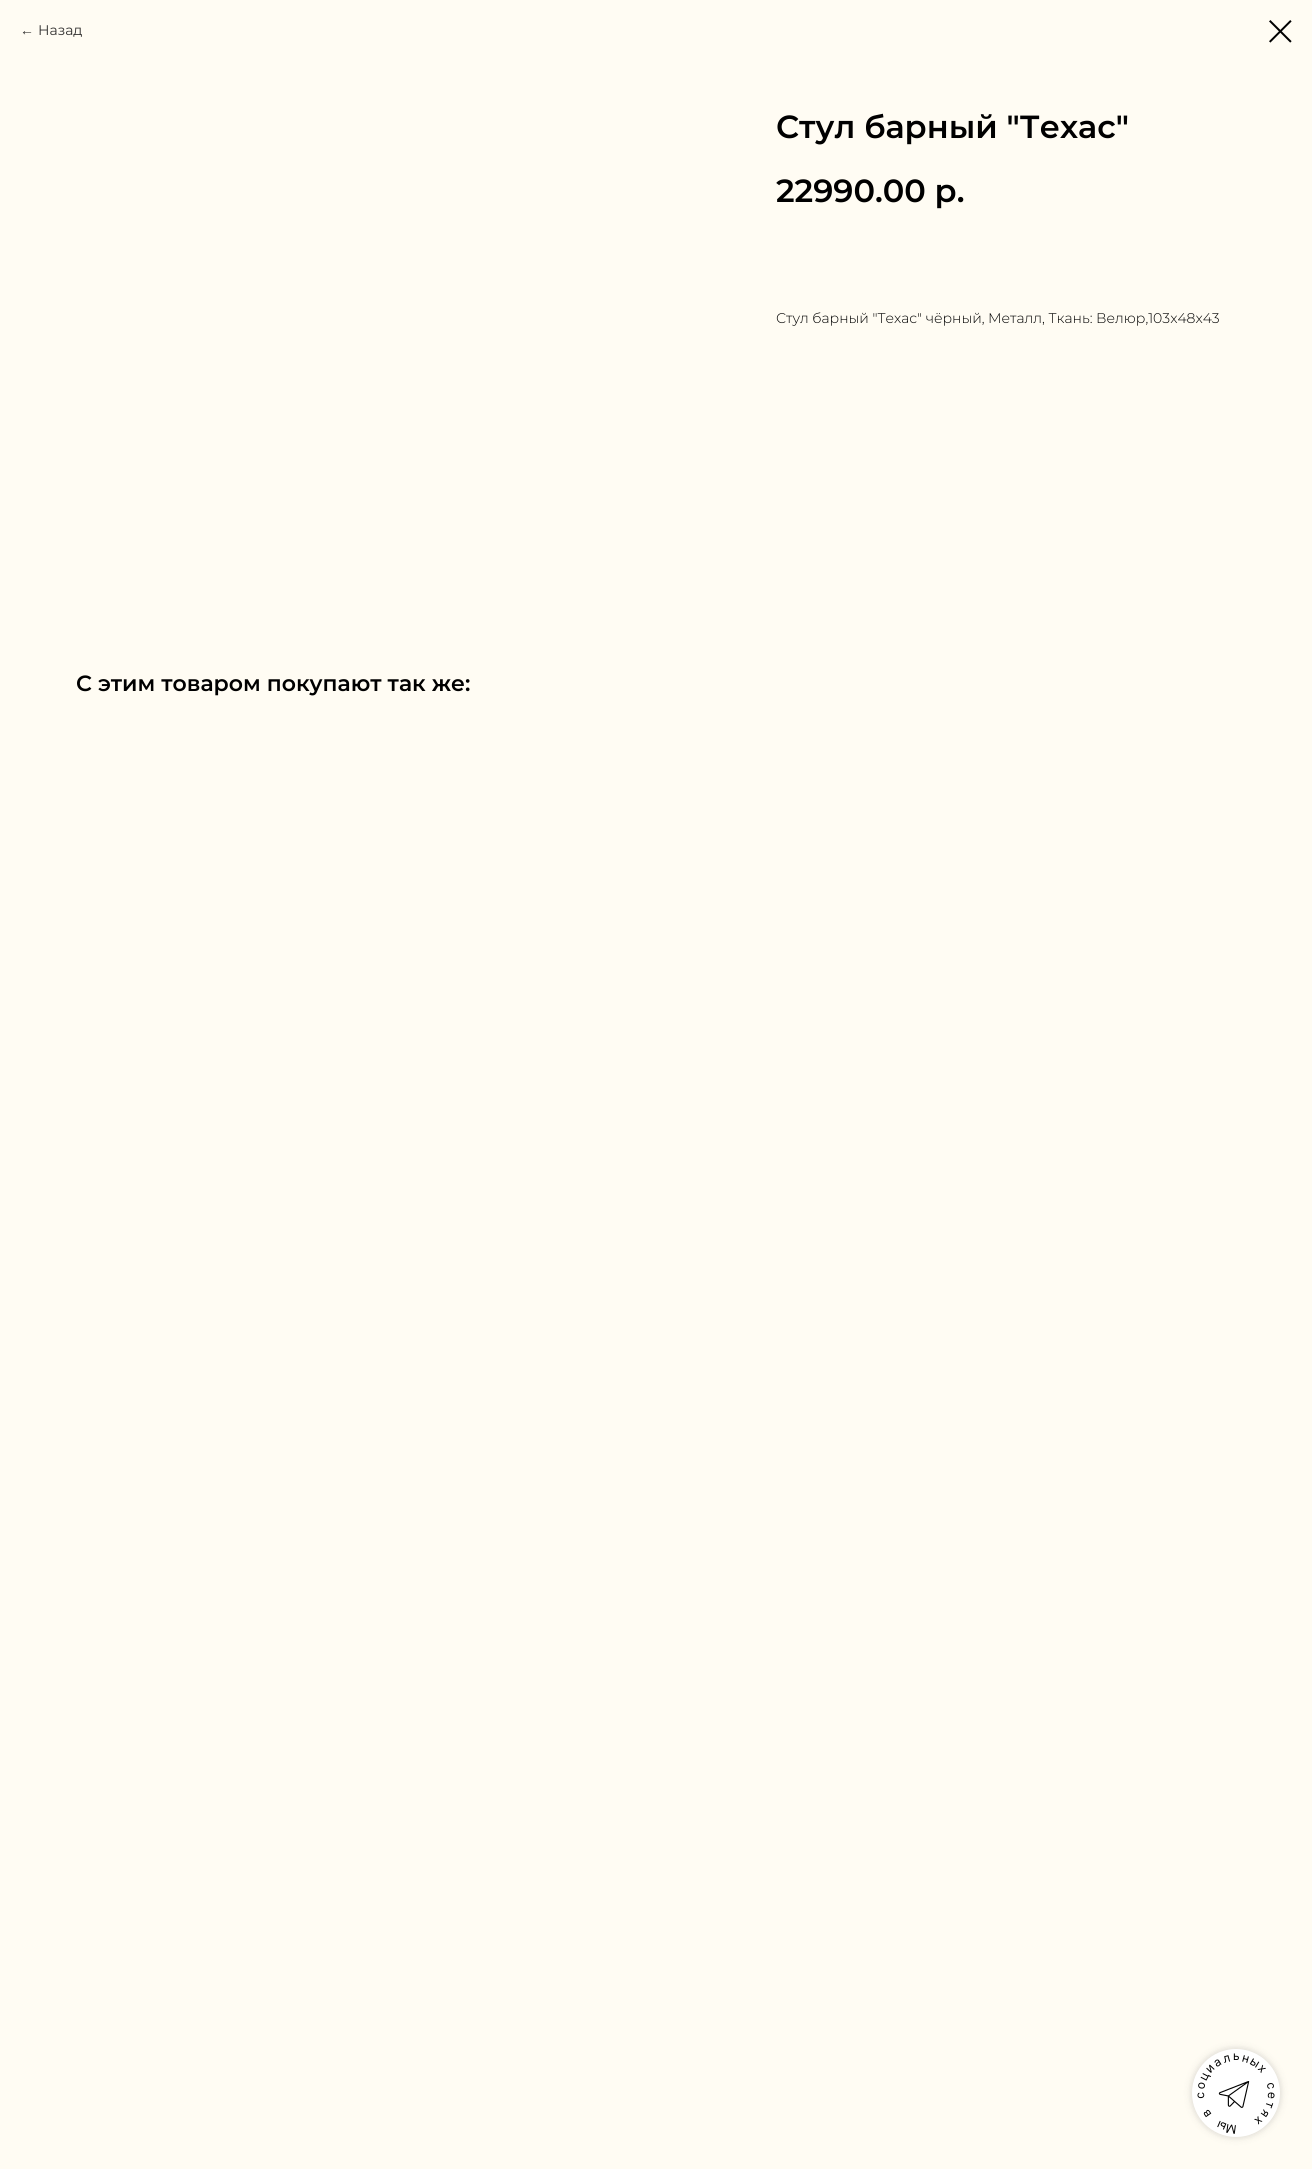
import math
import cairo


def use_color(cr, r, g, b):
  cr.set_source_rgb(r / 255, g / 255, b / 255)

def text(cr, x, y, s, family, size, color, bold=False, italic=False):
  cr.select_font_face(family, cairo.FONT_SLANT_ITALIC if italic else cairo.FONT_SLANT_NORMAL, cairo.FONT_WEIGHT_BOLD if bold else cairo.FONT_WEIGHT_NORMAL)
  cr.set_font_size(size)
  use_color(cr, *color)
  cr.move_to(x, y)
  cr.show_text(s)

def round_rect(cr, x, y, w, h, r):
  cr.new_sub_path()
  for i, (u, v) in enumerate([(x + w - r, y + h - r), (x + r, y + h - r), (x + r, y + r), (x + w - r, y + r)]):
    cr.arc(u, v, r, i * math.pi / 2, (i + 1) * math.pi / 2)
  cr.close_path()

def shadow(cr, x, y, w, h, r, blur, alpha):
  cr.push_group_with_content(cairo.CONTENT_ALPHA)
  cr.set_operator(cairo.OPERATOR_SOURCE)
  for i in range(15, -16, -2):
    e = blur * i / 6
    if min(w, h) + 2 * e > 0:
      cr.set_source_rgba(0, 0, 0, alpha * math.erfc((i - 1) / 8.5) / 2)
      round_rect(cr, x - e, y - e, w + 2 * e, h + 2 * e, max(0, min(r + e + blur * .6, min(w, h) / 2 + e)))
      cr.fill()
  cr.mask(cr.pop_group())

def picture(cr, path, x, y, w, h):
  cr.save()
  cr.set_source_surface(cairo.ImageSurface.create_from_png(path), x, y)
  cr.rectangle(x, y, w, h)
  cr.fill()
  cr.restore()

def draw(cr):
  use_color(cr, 255, 252, 243)
  cr.paint()
  picture(cr, "img_01.png", 1269, 20, 23, 23)
  use_color(cr, 0, 0, 0)
  shadow(cr, 1192, 2049, 88, 88, 44, 4, 0.17)
  use_color(cr, 255, 255, 255)
  cr.arc(1236, 2093, 44, 0, 2 * math.pi)
  cr.fill()
  picture(cr, "img_03.png", 1218, 2081, 32, 27)
  picture(cr, "img_02.png", 1197, 2053, 78, 81)
  text(cr, 20, 35, "←", "Liberation Sans", 14, (51, 50, 49))
  text(cr, 38, 35, "Назад", "Montserrat", 14, (51, 50, 49))
  text(cr, 776, 138, "Стул барный \"Техас\"", "Montserrat SemiBold", 32, (0, 0, 0))
  text(cr, 776, 202, "22990.00 р.", "Montserrat SemiBold", 32, (0, 0, 0))
  text(cr, 776, 323, "Стул барный \"Техас\" чёрный, Металл, Ткань: Велюр,103x48x43", "Montserrat Light", 14, (0, 0, 0))
  text(cr, 76, 691, "С этим товаром покупают так же:", "Montserrat SemiBold", 22, (0, 0, 0))


surface = cairo.ImageSurface(cairo.FORMAT_RGB24, 1312, 2169)
cr = cairo.Context(surface)
options = cairo.FontOptions()
options.set_hint_metrics(cairo.HINT_METRICS_OFF)
options.set_hint_style(cairo.HINT_STYLE_NONE)
cr.set_font_options(options)
cr.set_miter_limit(4)
draw(cr)
surface.write_to_png("out.png")
